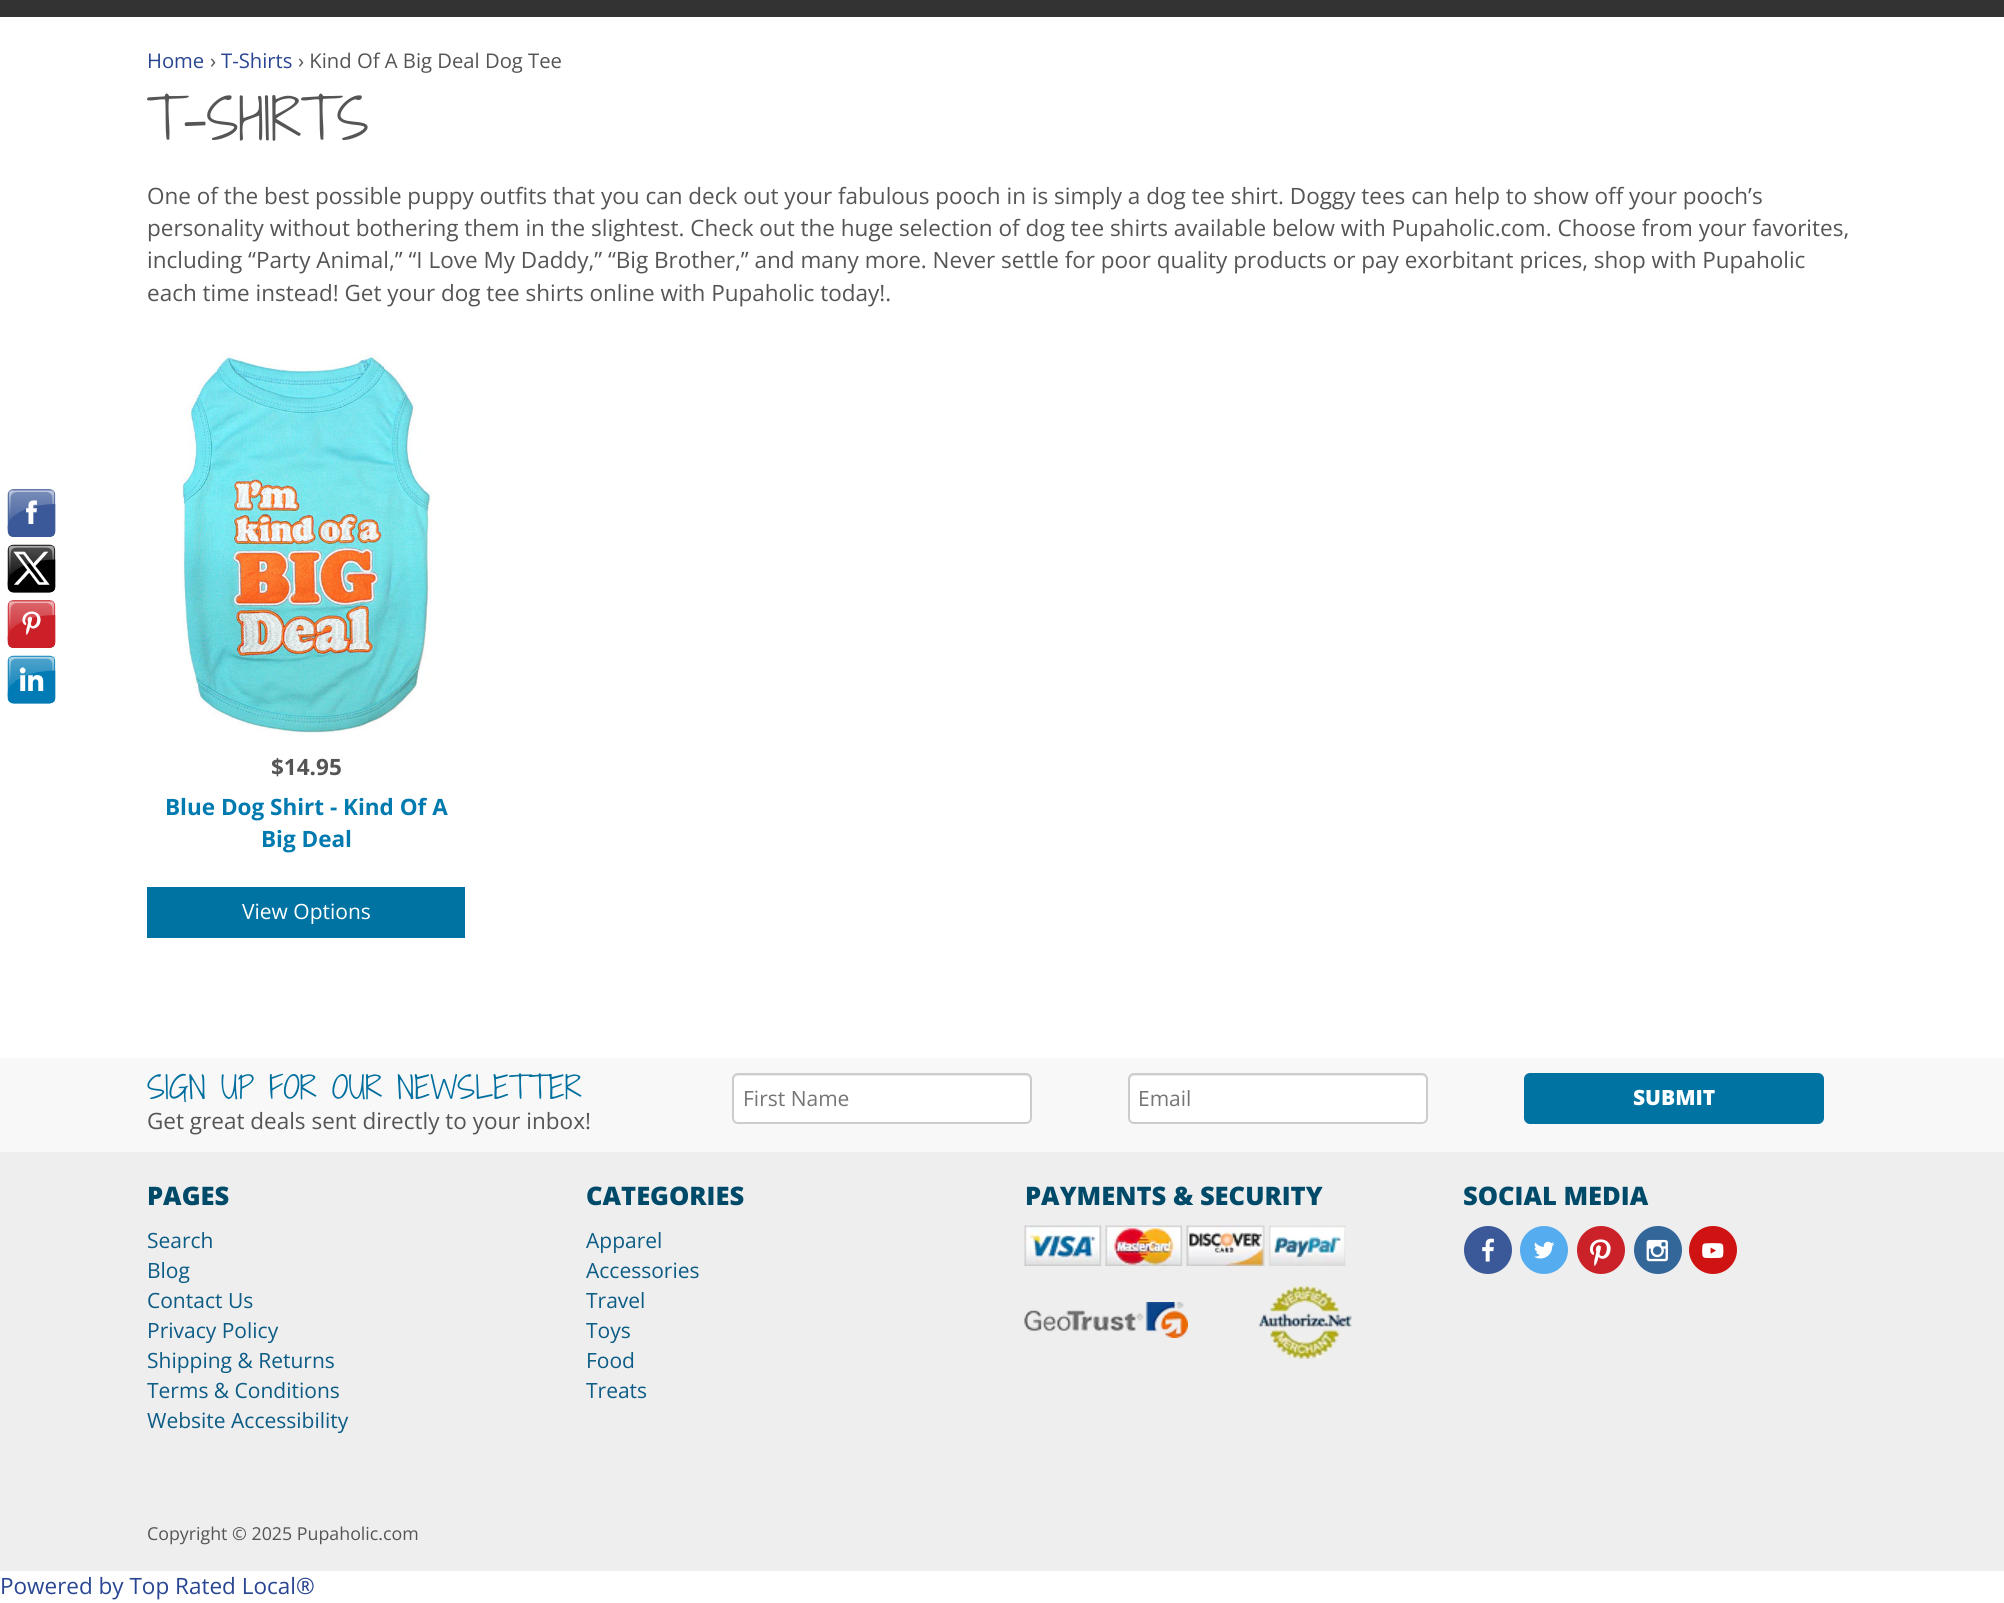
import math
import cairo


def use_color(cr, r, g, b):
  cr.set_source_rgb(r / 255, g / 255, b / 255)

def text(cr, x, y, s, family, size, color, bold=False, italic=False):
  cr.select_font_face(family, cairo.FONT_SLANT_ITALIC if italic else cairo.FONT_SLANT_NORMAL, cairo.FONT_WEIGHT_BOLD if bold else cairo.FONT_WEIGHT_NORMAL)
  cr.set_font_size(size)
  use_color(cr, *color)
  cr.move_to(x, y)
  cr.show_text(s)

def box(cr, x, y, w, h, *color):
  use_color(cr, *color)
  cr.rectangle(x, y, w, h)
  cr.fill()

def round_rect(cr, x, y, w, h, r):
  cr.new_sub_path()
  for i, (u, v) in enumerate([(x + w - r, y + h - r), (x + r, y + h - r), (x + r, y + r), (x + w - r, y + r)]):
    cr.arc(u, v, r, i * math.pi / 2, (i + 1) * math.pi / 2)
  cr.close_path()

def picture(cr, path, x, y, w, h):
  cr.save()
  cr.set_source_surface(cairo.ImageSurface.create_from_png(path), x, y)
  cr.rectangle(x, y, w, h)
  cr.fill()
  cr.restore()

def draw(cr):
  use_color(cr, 255, 255, 255)
  cr.paint()
  box(cr, 0, 0, 2004, 17, 51, 51, 51)
  picture(cr, "img_01.png", 7, 489, 49, 215)
  picture(cr, "img_02.png", 182, 354, 250, 381)
  box(cr, 147, 887, 318, 51, 0, 115, 163)
  box(cr, 0, 1058, 2004, 94, 248, 248, 248)
  use_color(cr, 255, 255, 255)
  round_rect(cr, 732, 1073, 300, 51, 6)
  cr.fill()
  use_color(cr, 236, 236, 236)
  cr.new_path()
  cr.move_to(738, 1076)
  cr.line_to(1026, 1076)
  cr.curve_to(1028, 1076, 1030, 1078, 1030, 1080)
  cr.line_to(1030, 1120)
  cr.curve_to(1031, 1119, 1031, 1118, 1031, 1117)
  cr.line_to(1031, 1079)
  cr.curve_to(1031, 1076, 1029, 1074, 1026, 1074)
  cr.line_to(739, 1074)
  cr.curve_to(736, 1074, 734, 1076, 734, 1079)
  cr.line_to(734, 1080)
  cr.curve_to(734, 1078, 736, 1076, 738, 1076)
  cr.close_path()
  cr.fill()
  round_rect(cr, 733, 1074, 298, 49, 5)
  use_color(cr, 204, 204, 204)
  cr.stroke()
  use_color(cr, 255, 255, 255)
  round_rect(cr, 1128, 1073, 300, 51, 6)
  cr.fill()
  use_color(cr, 236, 236, 236)
  cr.new_path()
  cr.move_to(1134, 1076)
  cr.line_to(1422, 1076)
  cr.curve_to(1424, 1076, 1426, 1078, 1426, 1080)
  cr.line_to(1426, 1120)
  cr.curve_to(1427, 1119, 1427, 1118, 1427, 1117)
  cr.line_to(1427, 1079)
  cr.curve_to(1427, 1076, 1425, 1074, 1422, 1074)
  cr.line_to(1135, 1074)
  cr.curve_to(1132, 1074, 1130, 1076, 1130, 1079)
  cr.line_to(1130, 1080)
  cr.curve_to(1130, 1078, 1132, 1076, 1134, 1076)
  cr.close_path()
  cr.fill()
  round_rect(cr, 1129, 1074, 298, 49, 5)
  use_color(cr, 204, 204, 204)
  cr.stroke()
  use_color(cr, 0, 115, 163)
  round_rect(cr, 1524, 1073, 300, 51, 6)
  cr.fill()
  box(cr, 0, 1152, 2004, 419, 238, 238, 238)
  picture(cr, "img_03.png", 1024, 1225, 322, 41)
  picture(cr, "img_04.png", 1024, 1302, 164, 36)
  picture(cr, "img_05.png", 1258, 1285, 94, 74)
  use_color(cr, 59, 89, 152)
  cr.arc(1488, 1250, 24, 0, 2 * math.pi)
  cr.fill()
  picture(cr, "img_06.png", 1482, 1238, 12, 24)
  use_color(cr, 85, 172, 238)
  cr.arc(1544, 1250, 24, 0, 2 * math.pi)
  cr.fill()
  picture(cr, "img_07.png", 1534, 1241, 21, 18)
  use_color(cr, 203, 33, 40)
  cr.arc(1601, 1250, 24, 0, 2 * math.pi)
  cr.fill()
  picture(cr, "img_08.png", 1589, 1239, 22, 28)
  use_color(cr, 51, 102, 153)
  cr.arc(1658, 1250, 24, 0, 2 * math.pi)
  cr.fill()
  picture(cr, "img_09.png", 1646, 1239, 22, 23)
  use_color(cr, 206, 19, 18)
  cr.arc(1713, 1250, 24, 0, 2 * math.pi)
  cr.fill()
  picture(cr, "img_10.png", 1702, 1243, 22, 16)
  text(cr, 147, 68, "Home", "Open Sans", 20.25, (41, 70, 146))
  text(cr, 210, 68, "›", "Open Sans", 20.25, (85, 85, 85))
  text(cr, 221, 68, "T-Shirts", "Open Sans", 20.25, (41, 70, 146))
  text(cr, 298, 68, "› Kind Of A Big Deal Dog Tee", "Open Sans", 20.25, (85, 85, 85))
  text(cr, 147, 140, "T-SHIRTS", "Shadows Into Light Two Light", 54, (85, 85, 85))
  text(cr, 147, 204, "One of the best possible puppy outfits that you can deck out your fabulous pooch in is simply a dog tee shirt. Doggy tees can help to show off your pooch’s", "Open Sans", 22.5, (85, 85, 85))
  text(cr, 147, 236, "personality without bothering them in the slightest. Check out the huge selection of dog tee shirts available below with Pupaholic.com. Choose from your favorites,", "Open Sans", 22.5, (85, 85, 85))
  text(cr, 147, 268, "including “Party Animal,” “I Love My Daddy,” “Big Brother,” and many more. Never settle for poor quality products or pay exorbitant prices, shop with Pupaholic", "Open Sans", 22.5, (85, 85, 85))
  text(cr, 147, 301, "each time instead! Get your dog tee shirts online with Pupaholic today!.", "Open Sans", 22.5, (85, 85, 85))
  text(cr, 271, 775, "$14.95", "Open Sans", 22.5, (85, 85, 85), bold=True)
  text(cr, 165, 815, "Blue Dog Shirt - Kind Of A", "Open Sans", 22.5, (0, 122, 175), bold=True)
  text(cr, 261, 847, "Big Deal", "Open Sans", 22.5, (0, 122, 175), bold=True)
  text(cr, 242, 919, "View Options", "Open Sans", 21, (255, 255, 255))
  text(cr, 147, 1099, "SIGN UP FOR OUR NEWSLETTER", "Shadows Into Light Two Light", 30, (0, 110, 158))
  text(cr, 147, 1129, "Get great deals sent directly to your inbox!", "Open Sans", 22.5, (85, 85, 85))
  text(cr, 743, 1106, "First Name", "Open Sans", 21, (117, 117, 117))
  text(cr, 1138, 1106, "Email", "Open Sans", 21, (117, 117, 117))
  text(cr, 1633, 1105, "SUBMIT", "Open Sans ExtraBold", 21, (255, 255, 255))
  text(cr, 147, 1205, "PAGES", "Open Sans ExtraBold", 25.5, (0, 74, 105))
  text(cr, 147, 1248, "Search", "Open Sans", 21, (12, 92, 134))
  text(cr, 147, 1278, "Blog", "Open Sans", 21, (12, 92, 134))
  text(cr, 147, 1308, "Contact Us", "Open Sans", 21, (12, 92, 134))
  text(cr, 147, 1338, "Privacy Policy", "Open Sans", 21, (12, 92, 134))
  text(cr, 147, 1368, "Shipping & Returns", "Open Sans", 21, (12, 92, 134))
  text(cr, 147, 1398, "Terms & Conditions", "Open Sans", 21, (12, 92, 134))
  text(cr, 147, 1428, "Website Accessibility", "Open Sans", 21, (12, 92, 134))
  text(cr, 586, 1205, "CATEGORIES", "Open Sans ExtraBold", 25.5, (0, 74, 105))
  text(cr, 586, 1248, "Apparel", "Open Sans", 21, (12, 92, 134))
  text(cr, 586, 1278, "Accessories", "Open Sans", 21, (12, 92, 134))
  text(cr, 586, 1308, "Travel", "Open Sans", 21, (12, 92, 134))
  text(cr, 586, 1338, "Toys", "Open Sans", 21, (12, 92, 134))
  text(cr, 586, 1368, "Food", "Open Sans", 21, (12, 92, 134))
  text(cr, 586, 1398, "Treats", "Open Sans", 21, (12, 92, 134))
  text(cr, 1025, 1205, "PAYMENTS & SECURITY", "Open Sans ExtraBold", 25.5, (0, 74, 105))
  text(cr, 1463, 1205, "SOCIAL MEDIA", "Open Sans ExtraBold", 25.5, (0, 74, 105))
  text(cr, 147, 1540, "Copyright © 2025 Pupaholic.com", "Open Sans", 17.8, (85, 85, 85))
  text(cr, 0, 1594, "Powered by Top Rated Local®", "Open Sans", 22.5, (41, 70, 146))


surface = cairo.ImageSurface(cairo.FORMAT_RGB24, 2004, 1603)
cr = cairo.Context(surface)
options = cairo.FontOptions()
options.set_hint_metrics(cairo.HINT_METRICS_OFF)
options.set_hint_style(cairo.HINT_STYLE_NONE)
cr.set_font_options(options)
cr.set_miter_limit(4)
draw(cr)
surface.write_to_png("out.png")
